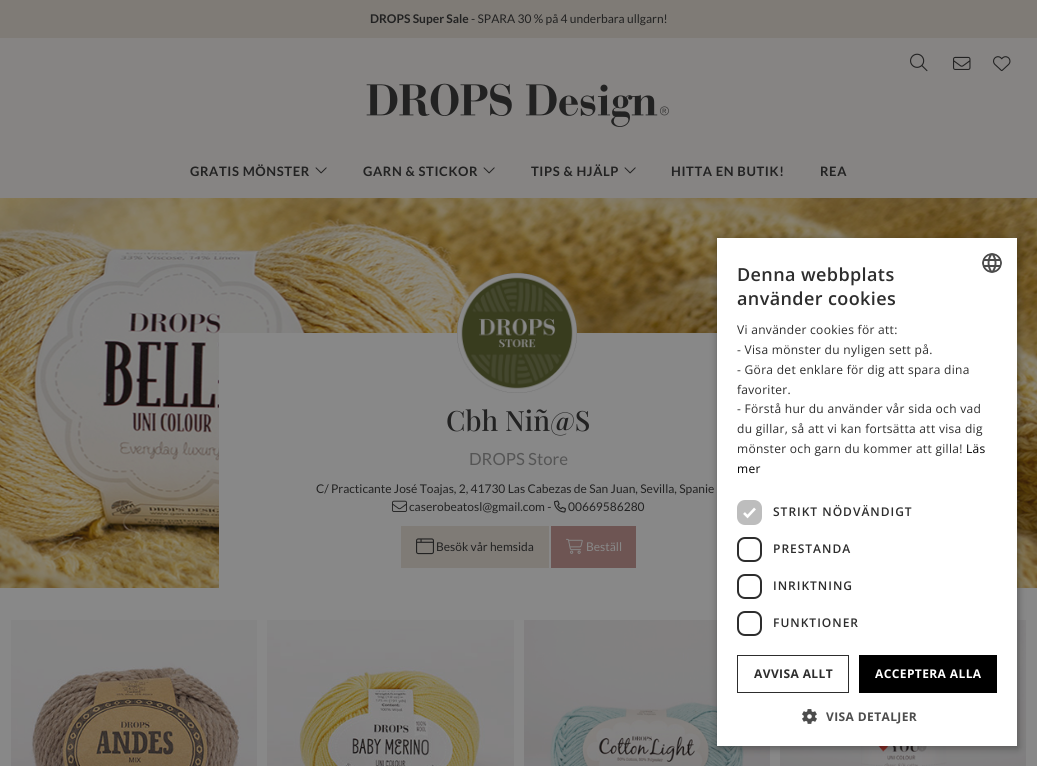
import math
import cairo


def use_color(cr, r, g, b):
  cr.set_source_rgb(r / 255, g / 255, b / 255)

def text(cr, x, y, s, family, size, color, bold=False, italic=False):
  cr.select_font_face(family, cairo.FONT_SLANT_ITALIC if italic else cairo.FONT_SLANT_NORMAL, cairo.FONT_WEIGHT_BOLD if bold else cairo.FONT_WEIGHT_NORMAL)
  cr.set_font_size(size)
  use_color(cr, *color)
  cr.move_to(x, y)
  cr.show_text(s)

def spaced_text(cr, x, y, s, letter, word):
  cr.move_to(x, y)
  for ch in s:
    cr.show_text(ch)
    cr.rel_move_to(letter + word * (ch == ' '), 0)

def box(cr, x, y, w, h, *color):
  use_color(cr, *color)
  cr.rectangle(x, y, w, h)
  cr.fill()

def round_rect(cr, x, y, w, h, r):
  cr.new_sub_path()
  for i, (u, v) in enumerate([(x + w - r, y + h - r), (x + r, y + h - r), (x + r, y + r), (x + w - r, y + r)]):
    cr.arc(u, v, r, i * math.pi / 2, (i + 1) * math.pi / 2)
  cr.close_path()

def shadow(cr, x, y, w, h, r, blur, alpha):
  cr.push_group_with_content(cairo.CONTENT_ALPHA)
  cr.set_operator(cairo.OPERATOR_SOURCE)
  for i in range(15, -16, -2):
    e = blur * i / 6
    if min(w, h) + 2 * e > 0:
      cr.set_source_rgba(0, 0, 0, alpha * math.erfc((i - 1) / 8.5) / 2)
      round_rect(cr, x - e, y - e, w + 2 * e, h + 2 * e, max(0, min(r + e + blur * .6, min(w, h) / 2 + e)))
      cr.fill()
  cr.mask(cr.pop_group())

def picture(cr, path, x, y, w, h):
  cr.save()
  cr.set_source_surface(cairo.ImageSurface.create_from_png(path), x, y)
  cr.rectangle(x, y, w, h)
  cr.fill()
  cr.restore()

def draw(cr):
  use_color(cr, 136, 136, 136)
  cr.paint()
  box(cr, 0, 0, 1037, 38, 127, 123, 118)
  box(cr, 0, 38, 1037, 160, 134, 132, 131)
  picture(cr, "img_01.png", 910, 53, 18, 19)
  picture(cr, "img_02.png", 953, 56, 18, 14)
  picture(cr, "img_03.png", 993, 56, 18, 16)
  picture(cr, "img_04.png", 366, 83, 303, 44)
  picture(cr, "img_05.png", 315, 167, 12, 7)
  picture(cr, "img_05.png", 483, 167, 12, 7)
  picture(cr, "img_05.png", 624, 167, 12, 7)
  picture(cr, "img_06.png", 0, 198, 1037, 390)
  box(cr, 219, 333, 498, 255, 136, 136, 136)
  picture(cr, "img_07.png", 457, 273, 120, 120)
  picture(cr, "img_08.png", 392, 500, 15, 12)
  picture(cr, "img_09.png", 554, 500, 12, 13)
  box(cr, 401, 526, 148, 42, 127, 123, 118)
  picture(cr, "img_10.png", 416, 538, 18, 17)
  box(cr, 551, 526, 85, 42, 110, 85, 83)
  picture(cr, "img_11.png", 566, 538, 17, 16)
  picture(cr, "img_12.png", 11, 620, 246, 146)
  picture(cr, "img_13.png", 267, 620, 247, 146)
  picture(cr, "img_14.png", 524, 620, 246, 146)
  picture(cr, "img_15.png", 780, 620, 246, 146)
  use_color(cr, 0, 0, 0)
  shadow(cr, 718, 240, 300, 508, 0, 4, 0.35)
  box(cr, 717, 238, 300, 508, 255, 255, 255)
  picture(cr, "img_16.png", 982, 253, 20, 20)
  use_color(cr, 189, 189, 189)
  round_rect(cr, 737, 500, 25, 25, 8)
  cr.fill()
  cr.new_path()
  cr.move_to(744, 513)
  cr.line_to(747.5, 516.5)
  cr.line_to(755, 508.5)
  use_color(cr, 255, 255, 255)
  cr.set_line_width(2.6)
  cr.stroke()
  round_rect(cr, 738, 538, 23, 23, 7)
  use_color(cr, 45, 45, 45)
  cr.set_line_width(2)
  cr.stroke()
  round_rect(cr, 738, 575, 23, 23, 7)
  cr.stroke()
  round_rect(cr, 738, 612, 23, 23, 7)
  cr.stroke()
  cr.rectangle(737.5, 655.5, 111, 37)
  cr.set_line_width(1)
  cr.stroke()
  box(cr, 859, 655, 138, 38, 0, 0, 0)
  picture(cr, "img_17.png", 802, 709, 15, 15)
  text(cr, 370, 23, "DROPS Super Sale", "Lato", 12, (34, 34, 34), bold=True)
  text(cr, 471, 23, "- SPARA 30 % på 4 underbara ullgarn!", "Lato", 12, (34, 34, 34))
  cr.select_font_face("Lato", cairo.FONT_SLANT_NORMAL, cairo.FONT_WEIGHT_BOLD)
  cr.set_font_size(13)
  spaced_text(cr, 190, 176, "GRATIS MÖNSTER", 0.6, 0)
  spaced_text(cr, 363, 176, "GARN & STICKOR", 0.6, 0)
  spaced_text(cr, 531, 176, "TIPS & HJÄLP", 0.6, 0)
  spaced_text(cr, 671, 176, "HITTA EN BUTIK!", 0.6, 0)
  spaced_text(cr, 820, 176, "REA", 0.6, 0)
  text(cr, 446, 431, "Cbh Niñ@S", "Playfair Display Medium", 28, (34, 34, 34))
  text(cr, 469, 465, "DROPS Store", "Lato", 16.75, (85, 85, 85))
  text(cr, 316, 493, "C/ Practicante José Toajas, 2, 41730 Las Cabezas de San Juan, Sevilla, Spanie", "Lato", 12, (34, 34, 34))
  text(cr, 409, 511, "caserobeatosl@gmail.com -", "Lato", 12, (34, 34, 34))
  text(cr, 568, 511, "00669586280", "Lato", 12, (34, 34, 34))
  text(cr, 436, 551, "Besök vår hemsida", "Lato", 12, (34, 34, 34))
  text(cr, 586, 551, "Beställ", "Lato", 12, (136, 136, 136))
  cr.select_font_face("Open Sans SemiBold")
  cr.set_font_size(18)
  use_color(cr, 45, 45, 45)
  spaced_text(cr, 737, 281, "Denna webbplats", 0.4, 0)
  spaced_text(cr, 737, 305, "använder cookies", 0.4, 0)
  cr.select_font_face("Open Sans")
  cr.set_font_size(12)
  spaced_text(cr, 737, 334, "Vi använder cookies för att:", 0.3, 0)
  spaced_text(cr, 737, 354, "- Visa mönster du nyligen sett på.", 0.3, 0)
  spaced_text(cr, 737, 374, "- Göra det enklare för dig att spara dina", 0.3, 0)
  spaced_text(cr, 737, 394, "favoriter.", 0.3, 0)
  spaced_text(cr, 737, 413, "- Förstå hur du använder vår sida och vad", 0.3, 0)
  spaced_text(cr, 737, 433, "du gillar, så att vi kan fortsätta att visa dig", 0.3, 0)
  spaced_text(cr, 737, 453, "mönster och garn du kommer att gilla!", 0.3, 0)
  use_color(cr, 0, 0, 0)
  spaced_text(cr, 966, 453, "Läs", 0.3, 0)
  spaced_text(cr, 737, 473, "mer", 0.3, 0)
  cr.select_font_face("Open Sans SemiBold")
  use_color(cr, 45, 45, 45)
  spaced_text(cr, 773, 516, "STRIKT NÖDVÄNDIGT", 1, 0)
  spaced_text(cr, 773, 553, "PRESTANDA", 1, 0)
  spaced_text(cr, 773, 590, "INRIKTNING", 1, 0)
  spaced_text(cr, 773, 627, "FUNKTIONER", 1, 0)
  cr.select_font_face("Open Sans", cairo.FONT_SLANT_NORMAL, cairo.FONT_WEIGHT_BOLD)
  spaced_text(cr, 754, 678, "AVVISA ALLT", 0.4, 0)
  use_color(cr, 255, 255, 255)
  spaced_text(cr, 875, 678, "ACCEPTERA ALLA", 0.4, 0)
  use_color(cr, 77, 77, 77)
  spaced_text(cr, 826, 721, "VISA DETALJER", 0.4, 0)


surface = cairo.ImageSurface(cairo.FORMAT_RGB24, 1037, 766)
cr = cairo.Context(surface)
options = cairo.FontOptions()
options.set_hint_metrics(cairo.HINT_METRICS_OFF)
options.set_hint_style(cairo.HINT_STYLE_NONE)
cr.set_font_options(options)
cr.set_miter_limit(4)
draw(cr)
surface.write_to_png("out.png")
